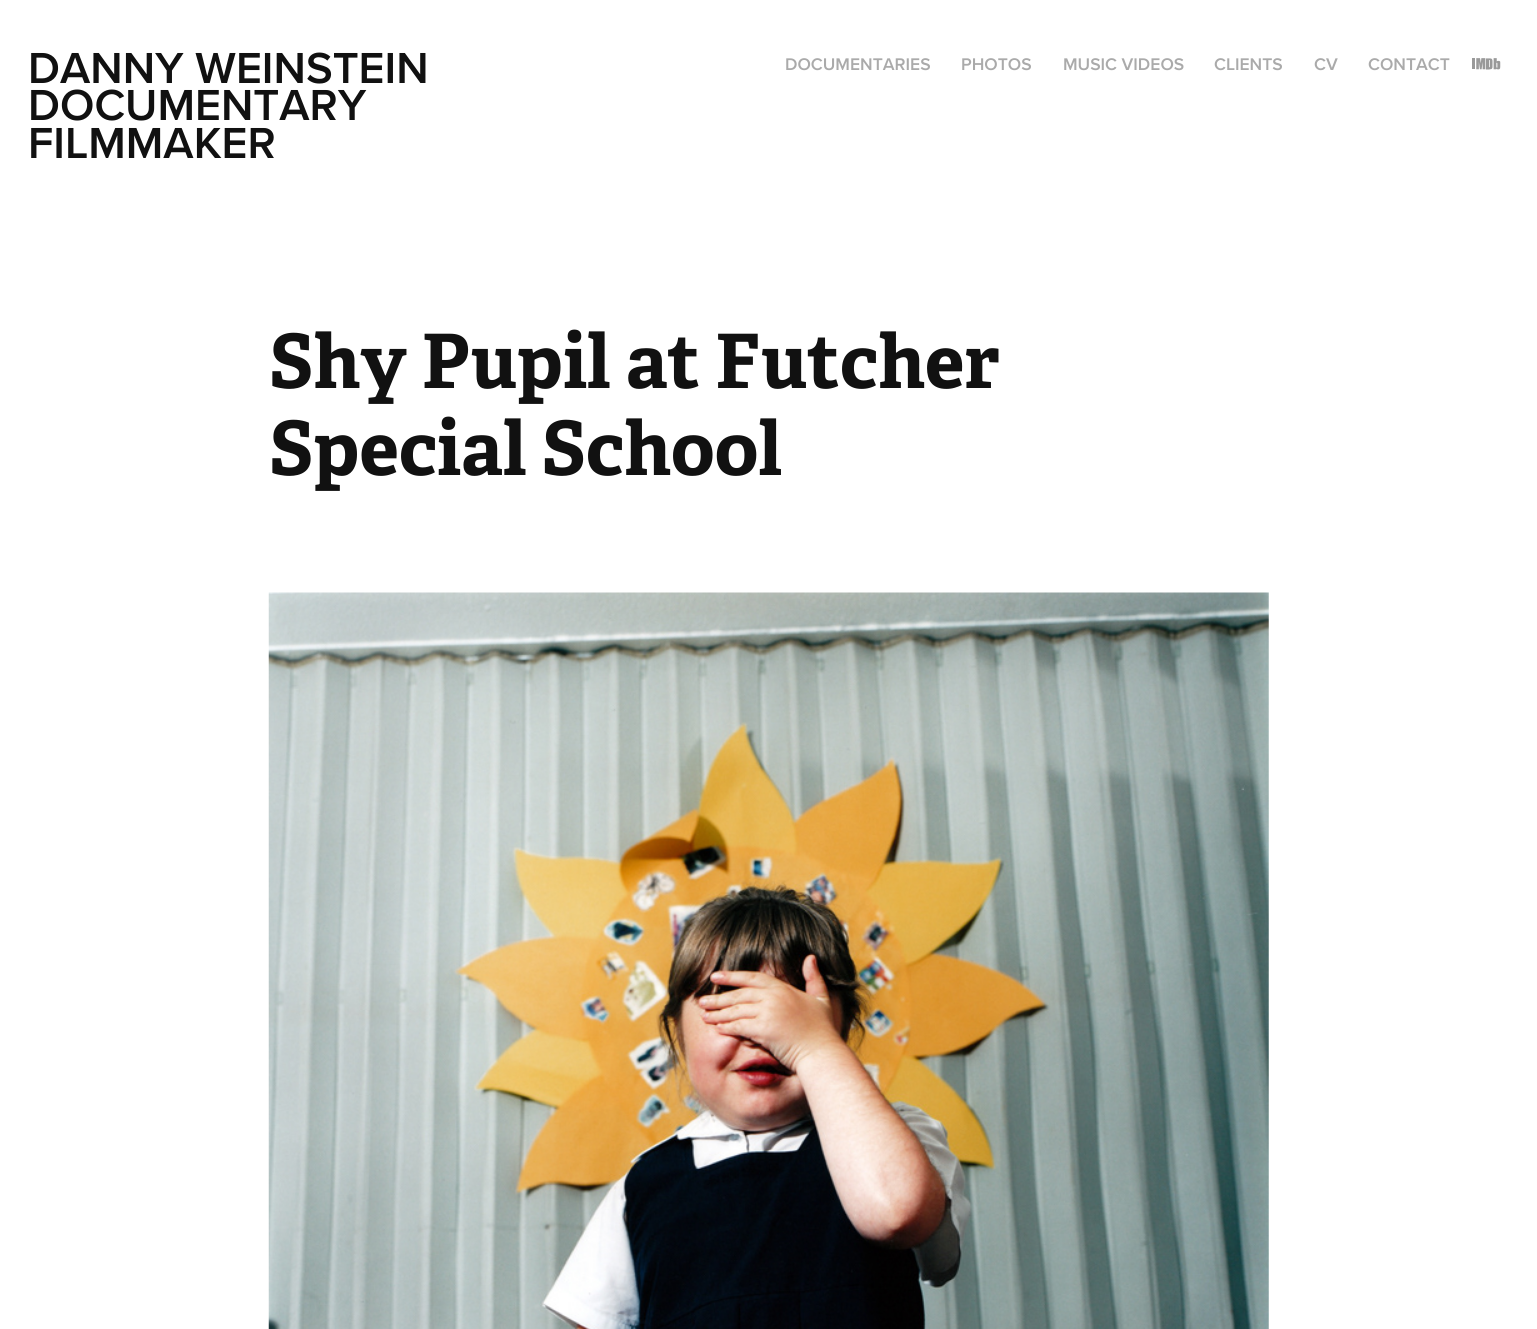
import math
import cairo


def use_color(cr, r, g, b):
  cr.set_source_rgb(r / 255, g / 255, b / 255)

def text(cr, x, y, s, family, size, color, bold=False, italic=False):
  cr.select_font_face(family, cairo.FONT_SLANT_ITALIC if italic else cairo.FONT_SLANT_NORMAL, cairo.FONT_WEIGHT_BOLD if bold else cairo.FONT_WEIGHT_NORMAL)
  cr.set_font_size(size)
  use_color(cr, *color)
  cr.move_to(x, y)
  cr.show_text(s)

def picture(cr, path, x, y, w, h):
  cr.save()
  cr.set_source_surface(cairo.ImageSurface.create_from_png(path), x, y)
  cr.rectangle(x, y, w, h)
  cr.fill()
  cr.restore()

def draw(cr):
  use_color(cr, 255, 255, 255)
  cr.paint()
  picture(cr, "img_01.png", 1472, 58, 29, 12)
  picture(cr, "img_02.png", 268, 592, 1001, 737)
  text(cr, 28, 83, "DANNY WEINSTEIN", "Proxima Nova SemiBold", 45, (17, 17, 17))
  text(cr, 28, 120, "DOCUMENTARY", "Proxima Nova SemiBold", 45, (17, 17, 17))
  text(cr, 28, 158, "FILMMAKER", "Proxima Nova SemiBold", 45, (17, 17, 17))
  text(cr, 785, 70, "DOCUMENTARIES", "Proxima Nova SemiBold", 17.5, (170, 170, 170))
  text(cr, 961, 70, "PHOTOS", "Proxima Nova SemiBold", 17.5, (170, 170, 170))
  text(cr, 1063, 70, "MUSIC VIDEOS", "Proxima Nova SemiBold", 17.5, (170, 170, 170))
  text(cr, 1214, 70, "CLIENTS", "Proxima Nova SemiBold", 17.5, (170, 170, 170))
  text(cr, 1314, 70, "CV", "Proxima Nova SemiBold", 17.5, (170, 170, 170))
  text(cr, 1368, 70, "CONTACT", "Proxima Nova SemiBold", 17.5, (170, 170, 170))
  text(cr, 269, 388, "Shy Pupil at Futcher", "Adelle", 75, (17, 17, 17), bold=True)
  text(cr, 269, 475, "Special School", "Adelle", 75, (17, 17, 17), bold=True)


surface = cairo.ImageSurface(cairo.FORMAT_RGB24, 1537, 1329)
cr = cairo.Context(surface)
options = cairo.FontOptions()
options.set_hint_metrics(cairo.HINT_METRICS_OFF)
options.set_hint_style(cairo.HINT_STYLE_NONE)
cr.set_font_options(options)
cr.set_miter_limit(4)
draw(cr)
surface.write_to_png("out.png")
